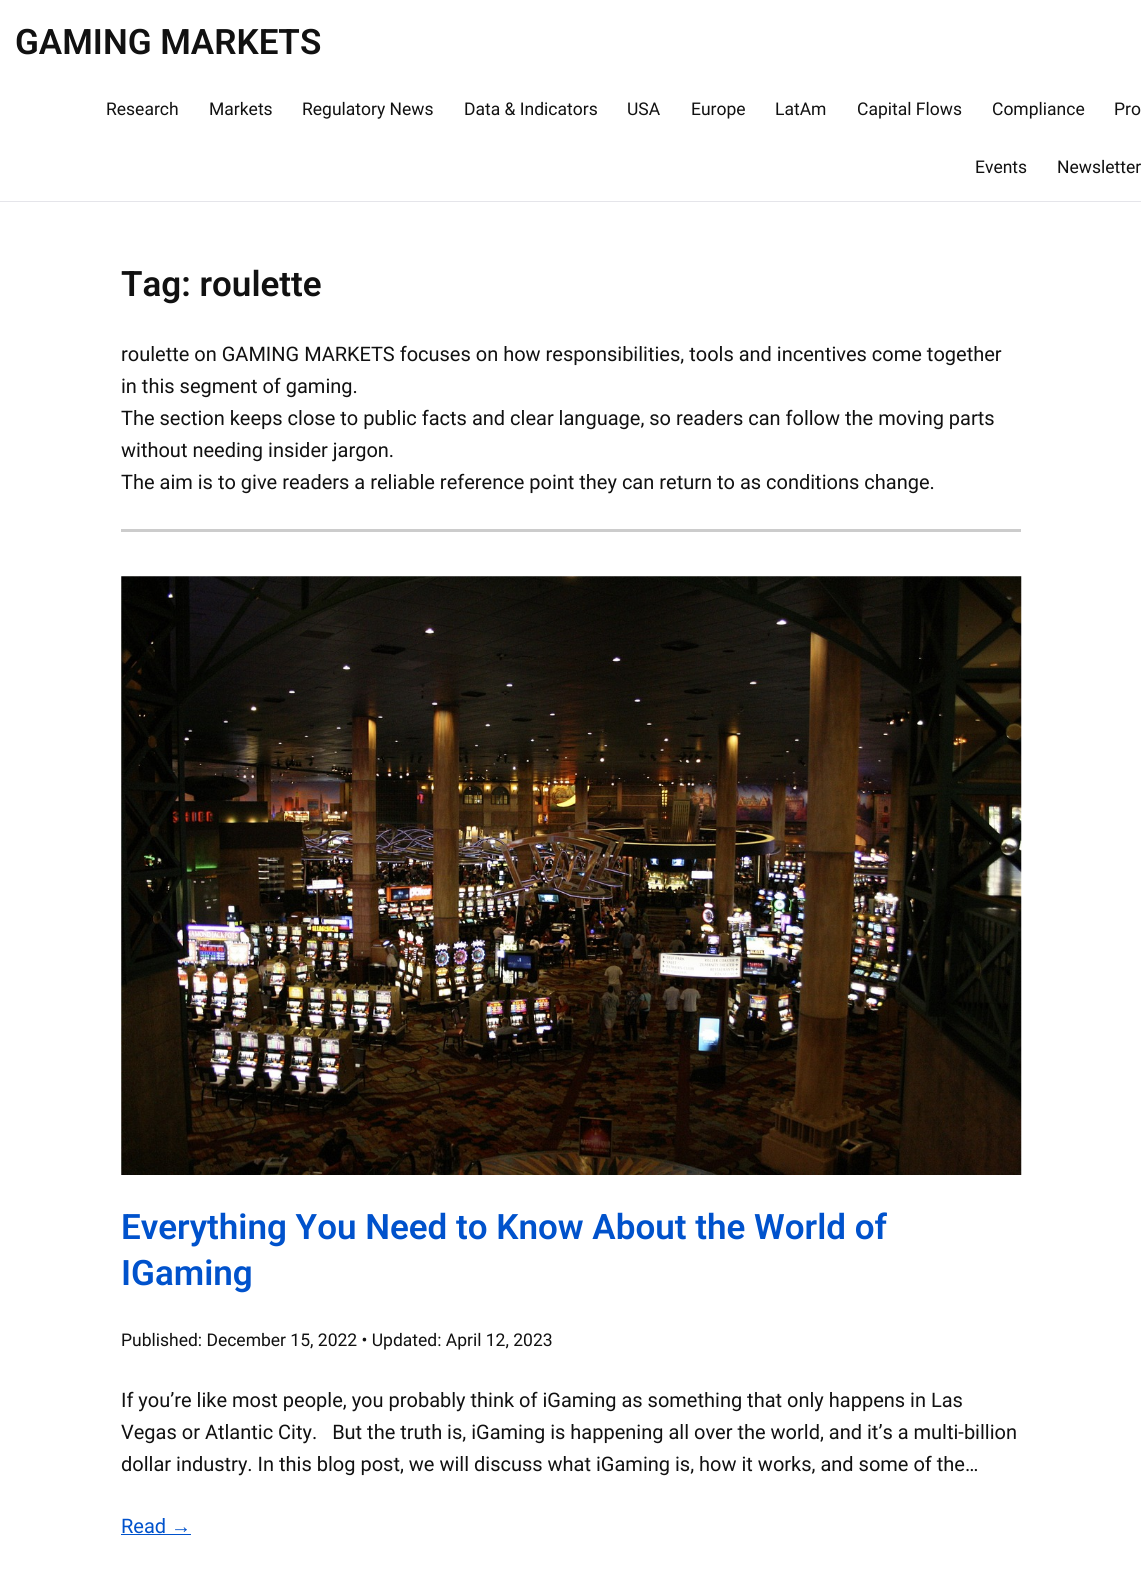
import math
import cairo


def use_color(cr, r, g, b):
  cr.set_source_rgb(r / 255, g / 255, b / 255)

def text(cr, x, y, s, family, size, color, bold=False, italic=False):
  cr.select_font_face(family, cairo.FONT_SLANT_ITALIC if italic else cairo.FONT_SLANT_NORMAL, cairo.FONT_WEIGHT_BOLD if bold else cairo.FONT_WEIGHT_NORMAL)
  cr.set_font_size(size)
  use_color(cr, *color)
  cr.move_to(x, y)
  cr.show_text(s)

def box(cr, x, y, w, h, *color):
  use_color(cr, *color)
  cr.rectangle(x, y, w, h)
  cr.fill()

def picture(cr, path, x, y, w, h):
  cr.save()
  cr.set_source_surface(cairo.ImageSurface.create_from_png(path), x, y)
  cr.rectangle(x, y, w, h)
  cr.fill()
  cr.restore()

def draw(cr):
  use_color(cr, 255, 255, 255)
  cr.paint()
  box(cr, 0, 201, 1141, 1, 229, 229, 234)
  box(cr, 121, 529, 900, 3, 204, 204, 204)
  picture(cr, "img_01.png", 121, 576, 901, 599)
  box(cr, 121, 1534, 70, 1, 0, 82, 204)
  text(cr, 15, 54, "GAMING MARKETS", "Roboto SemiBold", 35, (17, 17, 17))
  text(cr, 106, 115, "Research", "Roboto", 17.5, (17, 17, 17))
  text(cr, 209, 115, "Markets", "Roboto", 17.5, (17, 17, 17))
  text(cr, 302, 115, "Regulatory News", "Roboto", 17.5, (17, 17, 17))
  text(cr, 464, 115, "Data & Indicators", "Roboto", 17.5, (17, 17, 17))
  text(cr, 627, 115, "USA", "Roboto", 17.5, (17, 17, 17))
  text(cr, 691, 115, "Europe", "Roboto", 17.5, (17, 17, 17))
  text(cr, 775, 115, "LatAm", "Roboto", 17.5, (17, 17, 17))
  text(cr, 857, 115, "Capital Flows", "Roboto", 17.5, (17, 17, 17))
  text(cr, 992, 115, "Compliance", "Roboto", 17.5, (17, 17, 17))
  text(cr, 1114, 115, "Pro", "Roboto", 17.5, (17, 17, 17))
  text(cr, 975, 173, "Events", "Roboto", 17.5, (17, 17, 17))
  text(cr, 1057, 173, "Newsletter", "Roboto", 17.5, (17, 17, 17))
  text(cr, 121, 296, "Tag: roulette", "Roboto SemiBold", 35, (17, 17, 17))
  text(cr, 121, 361, "roulette on GAMING MARKETS focuses on how responsibilities, tools and incentives come together", "Roboto", 20, (17, 17, 17))
  text(cr, 121, 393, "in this segment of gaming.", "Roboto", 20, (17, 17, 17))
  text(cr, 121, 425, "The section keeps close to public facts and clear language, so readers can follow the moving parts", "Roboto", 20, (17, 17, 17))
  text(cr, 121, 457, "without needing insider jargon.", "Roboto", 20, (17, 17, 17))
  text(cr, 121, 489, "The aim is to give readers a reliable reference point they can return to as conditions change.", "Roboto", 20, (17, 17, 17))
  text(cr, 121, 1239, "Everything You Need to Know About the World of", "Roboto SemiBold", 35, (0, 82, 204))
  text(cr, 121, 1285, "IGaming", "Roboto SemiBold", 35, (0, 82, 204))
  text(cr, 121, 1346, "Published: December 15, 2022 • Updated: April 12, 2023", "Roboto", 17.5, (17, 17, 17))
  text(cr, 121, 1407, "If you’re like most people, you probably think of iGaming as something that only happens in Las", "Roboto", 20, (17, 17, 17))
  text(cr, 121, 1439, "Vegas or Atlantic City.   But the truth is, iGaming is happening all over the world, and it’s a multi-billion", "Roboto", 20, (17, 17, 17))
  text(cr, 121, 1471, "dollar industry. In this blog post, we will discuss what iGaming is, how it works, and some of the…", "Roboto", 20, (17, 17, 17))
  text(cr, 121, 1533, "Read", "Roboto", 20, (0, 82, 204))
  text(cr, 171, 1533, "→", "Liberation Sans", 20, (0, 82, 204))


surface = cairo.ImageSurface(cairo.FORMAT_RGB24, 1141, 1590)
cr = cairo.Context(surface)
options = cairo.FontOptions()
options.set_hint_metrics(cairo.HINT_METRICS_OFF)
options.set_hint_style(cairo.HINT_STYLE_NONE)
cr.set_font_options(options)
cr.set_miter_limit(4)
draw(cr)
surface.write_to_png("out.png")
